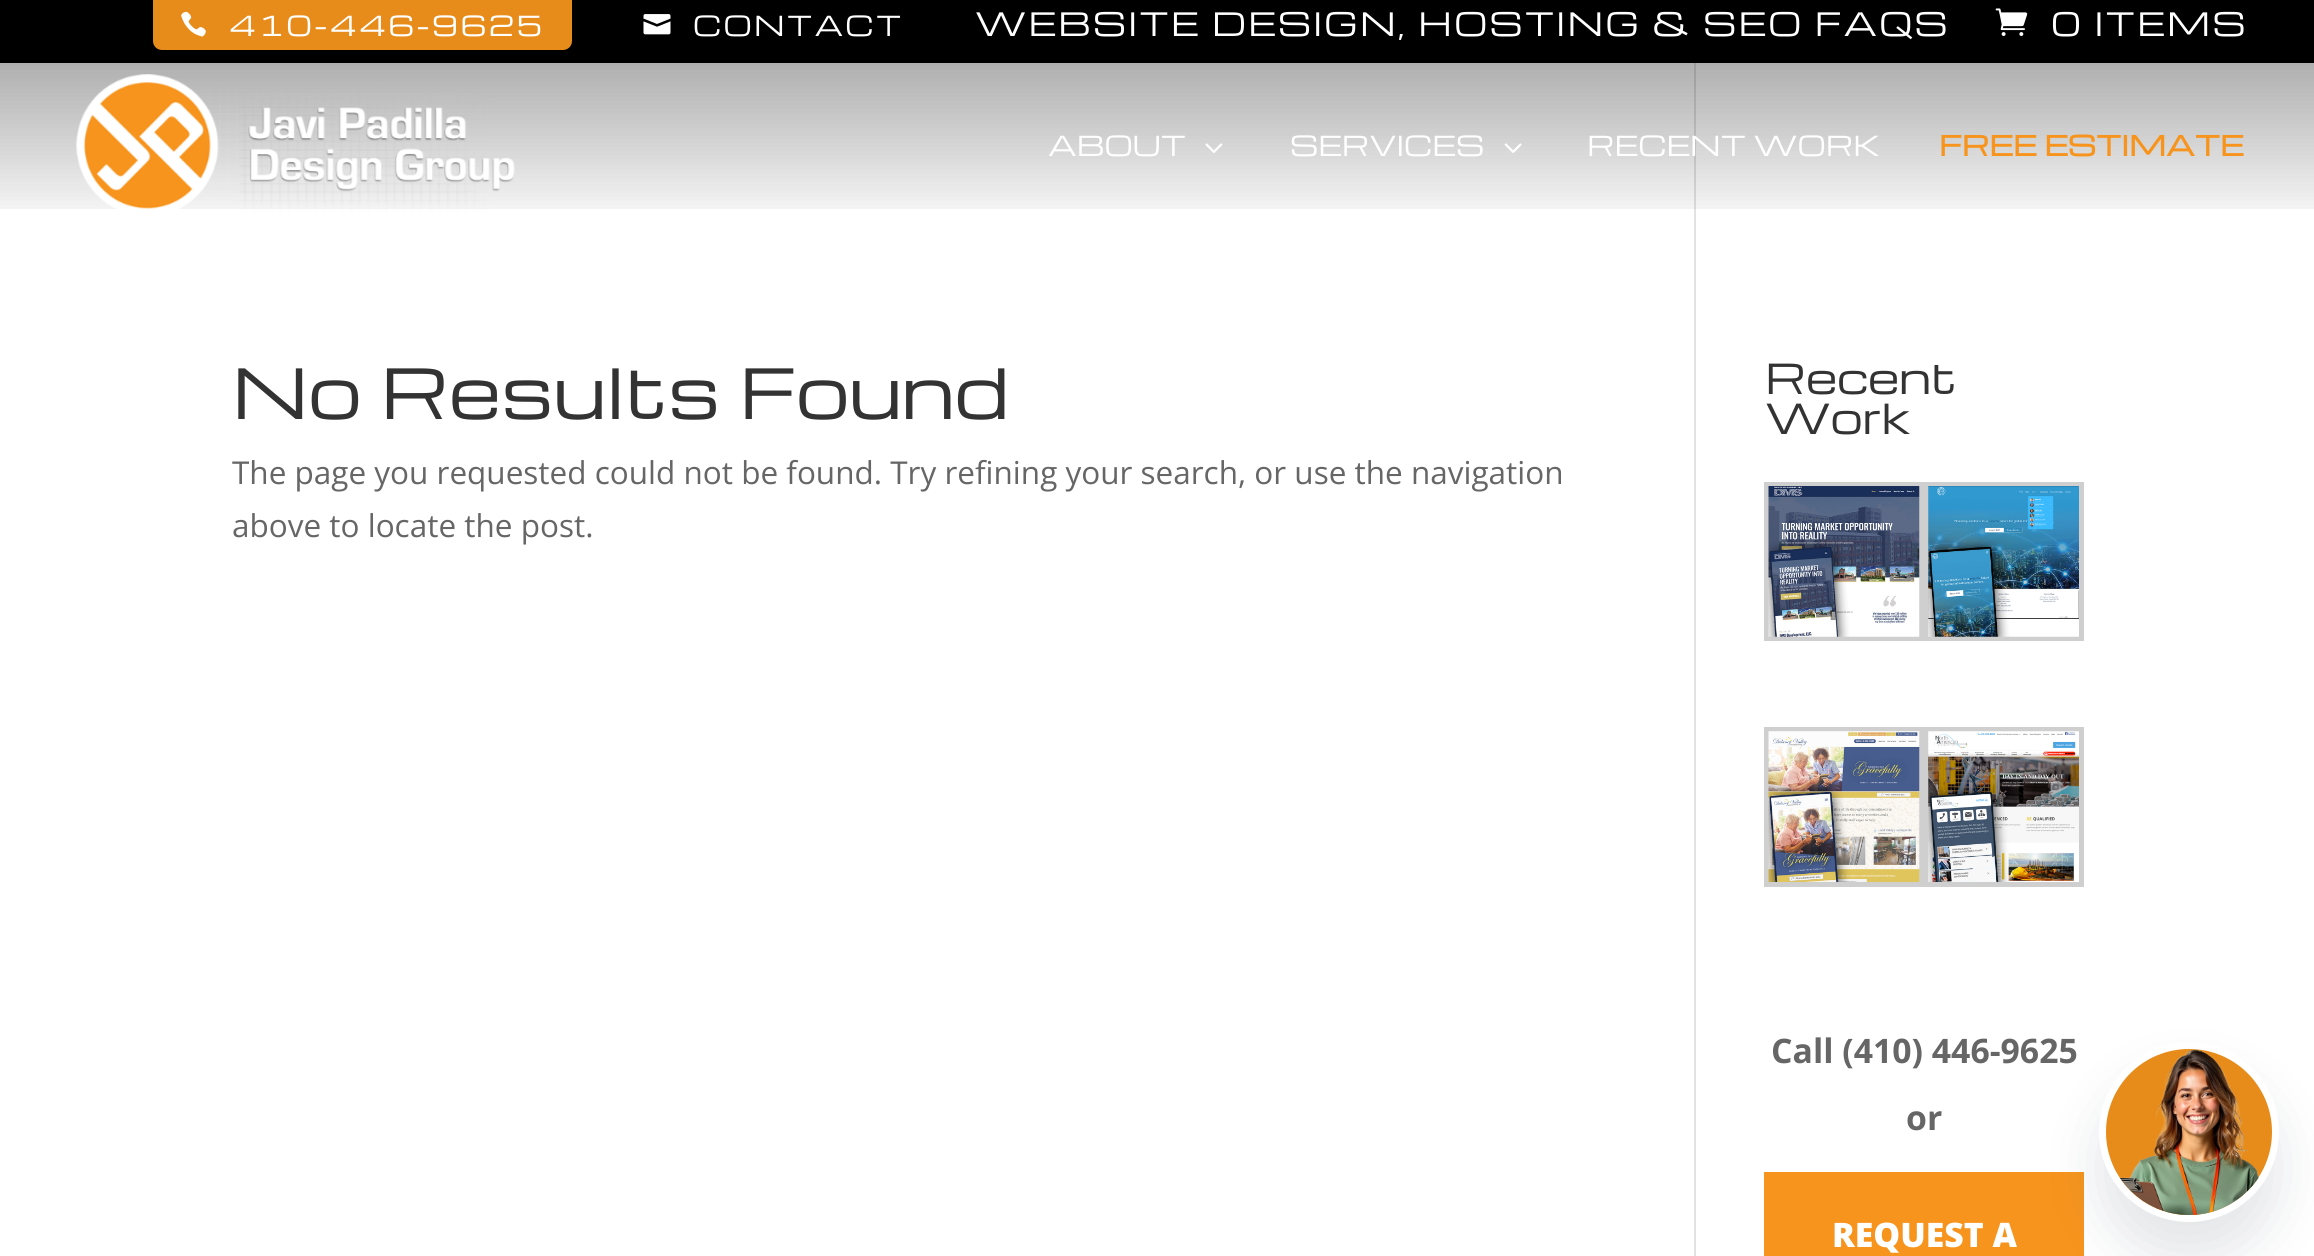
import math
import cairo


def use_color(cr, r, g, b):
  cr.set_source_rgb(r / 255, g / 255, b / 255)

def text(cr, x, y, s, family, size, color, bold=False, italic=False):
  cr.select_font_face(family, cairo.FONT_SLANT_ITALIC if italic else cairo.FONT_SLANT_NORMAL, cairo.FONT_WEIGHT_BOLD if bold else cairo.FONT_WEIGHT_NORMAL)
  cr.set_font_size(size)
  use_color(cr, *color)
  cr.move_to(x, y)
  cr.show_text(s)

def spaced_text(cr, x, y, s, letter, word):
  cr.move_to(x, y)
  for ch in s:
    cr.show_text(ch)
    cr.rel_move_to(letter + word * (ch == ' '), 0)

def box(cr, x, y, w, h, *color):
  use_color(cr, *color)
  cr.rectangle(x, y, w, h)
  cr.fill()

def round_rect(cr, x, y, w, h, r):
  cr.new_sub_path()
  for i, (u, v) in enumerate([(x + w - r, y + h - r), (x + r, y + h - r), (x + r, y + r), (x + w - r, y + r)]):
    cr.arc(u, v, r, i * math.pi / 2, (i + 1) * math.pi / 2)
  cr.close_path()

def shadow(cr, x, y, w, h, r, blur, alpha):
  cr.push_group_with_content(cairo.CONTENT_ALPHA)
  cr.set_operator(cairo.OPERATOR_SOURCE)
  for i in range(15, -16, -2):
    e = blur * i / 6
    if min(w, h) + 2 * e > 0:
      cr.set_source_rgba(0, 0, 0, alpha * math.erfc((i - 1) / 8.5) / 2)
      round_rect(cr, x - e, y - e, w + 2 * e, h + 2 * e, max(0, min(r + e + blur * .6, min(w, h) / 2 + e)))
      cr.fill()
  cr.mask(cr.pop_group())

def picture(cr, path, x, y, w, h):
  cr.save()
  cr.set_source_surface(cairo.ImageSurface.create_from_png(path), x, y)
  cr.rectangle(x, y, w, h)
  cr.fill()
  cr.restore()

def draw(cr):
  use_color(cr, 255, 255, 255)
  cr.paint()
  box(cr, 0, 0, 2314, 63, 0, 0, 0)
  use_color(cr, 231, 140, 26)
  cr.new_path()
  cr.move_to(153, 0)
  cr.line_to(572, 0)
  cr.line_to(572, 41)
  cr.curve_to(572, 46, 568, 50, 563, 50)
  cr.line_to(162, 50)
  cr.curve_to(157, 50, 153, 46, 153, 41)
  cr.close_path()
  cr.fill()
  picture(cr, "img_01.png", 181, 11, 25, 26)
  picture(cr, "img_02.png", 643, 14, 28, 21)
  picture(cr, "img_03.png", 1995, 8, 33, 28)
  box(cr, 1694, 63, 2, 1193, 226, 226, 226)
  gradient = cairo.LinearGradient(1158, 63, 1158, 230)
  gradient.add_color_stop_rgba(0, 0, 0, 0, 0.17)
  gradient.add_color_stop_rgba(1, 0, 0, 0, 0)
  cr.set_source(gradient)
  cr.rectangle(0, 63, 2314, 146)
  cr.fill()
  cr.rectangle(0, 63, 2314, 146)
  cr.fill()
  picture(cr, "img_04.png", 76, 74, 439, 142)
  picture(cr, "img_05.png", 1205, 143, 18, 10)
  picture(cr, "img_06.png", 1504, 143, 18, 10)
  cr.rectangle(1766.5, 484.5, 155, 154)
  use_color(cr, 207, 207, 207)
  cr.set_line_width(5)
  cr.stroke()
  picture(cr, "img_07.png", 1768, 486, 152, 151)
  cr.rectangle(1926.5, 484.5, 155, 154)
  cr.stroke()
  picture(cr, "img_08.png", 1928, 486, 151, 151)
  cr.rectangle(1766.5, 729.5, 155, 155)
  cr.stroke()
  picture(cr, "img_09.png", 1768, 731, 152, 151)
  cr.rectangle(1926.5, 729.5, 155, 155)
  cr.stroke()
  picture(cr, "img_10.png", 1928, 731, 151, 151)
  box(cr, 1764, 1172, 320, 84, 247, 148, 29)
  use_color(cr, 84, 95, 111)
  shadow(cr, 2099, 1078, 180, 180, 90, 27, 0.16)
  use_color(cr, 231, 140, 26)
  cr.arc(2189, 1132, 86.5, 0, 2 * math.pi)
  cr.fill_preserve()
  use_color(cr, 255, 255, 255)
  cr.set_line_width(7)
  cr.stroke()
  picture(cr, "img_11.png", 2119, 1049, 140, 166)
  cr.select_font_face("Michroma")
  cr.set_font_size(27)
  spaced_text(cr, 229, 36, "410-446-9625", 2.25, 0)
  spaced_text(cr, 693, 36, "CONTACT", 2.25, 0)
  cr.set_font_size(31.5)
  spaced_text(cr, 975, 36, "WEBSITE DESIGN, HOSTING & SEO FAQS", 2.25, 0)
  spaced_text(cr, 2051, 36, "0 ITEMS", 2.25, 0)
  text(cr, 1048, 156, "ABOUT", "Michroma", 27, (255, 255, 255))
  text(cr, 1290, 156, "SERVICES", "Michroma", 27, (255, 255, 255))
  text(cr, 1587, 156, "RECENT WORK", "Michroma", 27, (255, 255, 255))
  text(cr, 1939, 156, "FREE ESTIMATE", "Michroma", 27, (247, 148, 29), bold=True)
  text(cr, 232, 419, "No Results Found", "Michroma", 67.5, (51, 51, 51))
  text(cr, 232, 484, "The page you requested could not be found. Try refining your search, or use the navigation", "Open Sans", 31.5, (102, 102, 102))
  text(cr, 232, 537, "above to locate the post.", "Open Sans", 31.5, (102, 102, 102))
  text(cr, 1765, 394, "Recent", "Michroma", 40.5, (51, 51, 51))
  text(cr, 1765, 434, "Work", "Michroma", 40.5, (51, 51, 51))
  text(cr, 1771, 1063, "Call (410) 446-9625", "Open Sans", 33.75, (102, 102, 102), bold=True)
  text(cr, 1906, 1130, "or", "Open Sans", 33.75, (102, 102, 102), bold=True)
  text(cr, 1832, 1247, "REQUEST A", "Open Sans ExtraBold", 33.75, (255, 255, 255))


surface = cairo.ImageSurface(cairo.FORMAT_RGB24, 2314, 1256)
cr = cairo.Context(surface)
options = cairo.FontOptions()
options.set_hint_metrics(cairo.HINT_METRICS_OFF)
options.set_hint_style(cairo.HINT_STYLE_NONE)
cr.set_font_options(options)
cr.set_miter_limit(4)
draw(cr)
surface.write_to_png("out.png")
